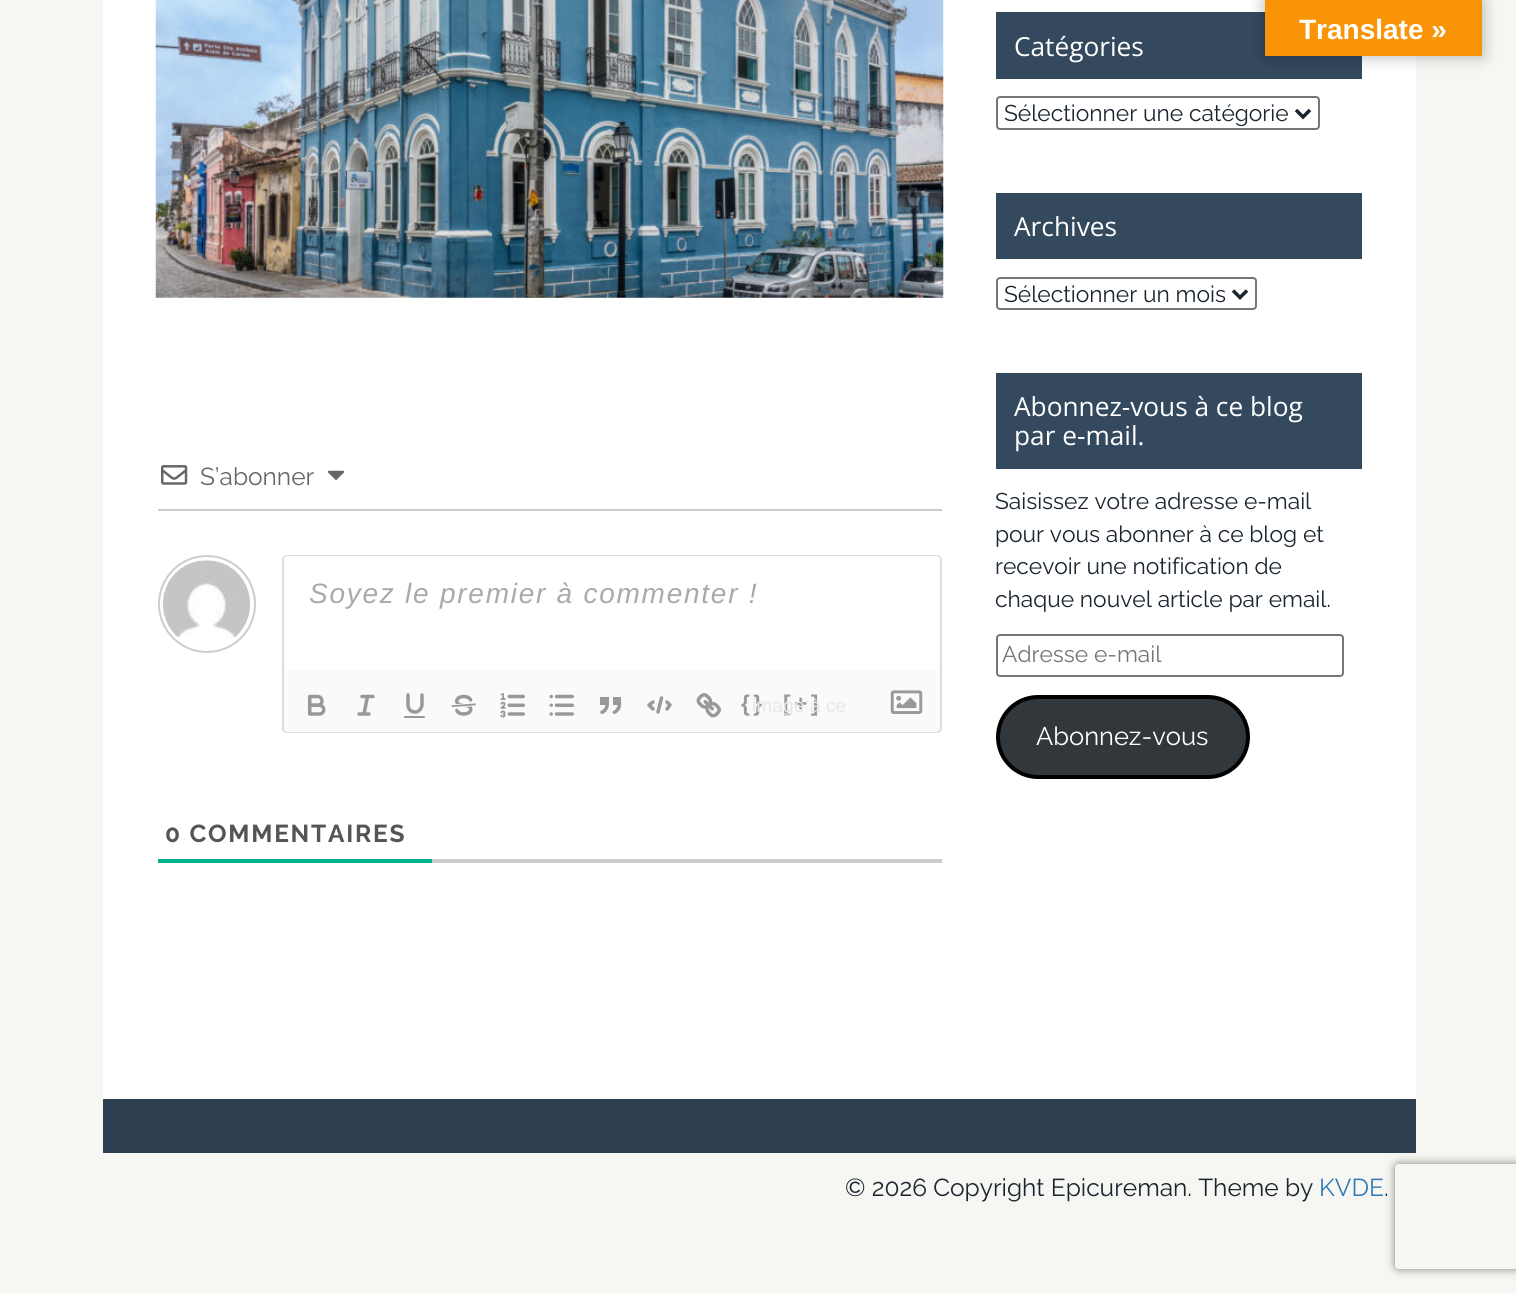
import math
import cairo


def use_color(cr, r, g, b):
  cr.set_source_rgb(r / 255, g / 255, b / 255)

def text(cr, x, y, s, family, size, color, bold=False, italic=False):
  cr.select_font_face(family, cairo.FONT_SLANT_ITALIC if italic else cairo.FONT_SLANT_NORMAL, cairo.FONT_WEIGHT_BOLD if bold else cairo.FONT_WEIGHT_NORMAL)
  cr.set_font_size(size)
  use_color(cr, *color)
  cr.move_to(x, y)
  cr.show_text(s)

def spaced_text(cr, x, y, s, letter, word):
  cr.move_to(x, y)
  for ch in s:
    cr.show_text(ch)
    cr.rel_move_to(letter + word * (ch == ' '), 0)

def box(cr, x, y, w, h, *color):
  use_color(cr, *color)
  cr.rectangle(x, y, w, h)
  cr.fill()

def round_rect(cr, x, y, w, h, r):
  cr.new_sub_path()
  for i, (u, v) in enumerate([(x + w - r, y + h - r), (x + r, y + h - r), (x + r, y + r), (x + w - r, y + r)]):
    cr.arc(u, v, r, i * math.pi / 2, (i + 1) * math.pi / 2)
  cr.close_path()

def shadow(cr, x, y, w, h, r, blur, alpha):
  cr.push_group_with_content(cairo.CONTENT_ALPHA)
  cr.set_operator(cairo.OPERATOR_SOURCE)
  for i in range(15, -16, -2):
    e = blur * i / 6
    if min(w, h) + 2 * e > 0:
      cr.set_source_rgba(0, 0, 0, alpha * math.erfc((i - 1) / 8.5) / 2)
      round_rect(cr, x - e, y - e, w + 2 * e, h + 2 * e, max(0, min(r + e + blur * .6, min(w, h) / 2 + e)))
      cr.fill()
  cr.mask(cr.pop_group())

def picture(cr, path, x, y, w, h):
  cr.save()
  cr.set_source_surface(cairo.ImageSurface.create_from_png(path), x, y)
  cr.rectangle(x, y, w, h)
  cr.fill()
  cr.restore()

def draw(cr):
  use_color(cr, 246, 246, 242)
  cr.paint()
  box(cr, 103, 0, 1313, 1099, 255, 255, 255)
  box(cr, 996, 12, 366, 67, 52, 73, 94)
  use_color(cr, 0, 0, 0)
  shadow(cr, 1265, 0, 217, 56, 0, 8, 0.3)
  box(cr, 1265, 0, 217, 56, 248, 148, 6)
  picture(cr, "img_01.png", 155, 0, 789, 298)
  box(cr, 158, 509, 784, 2, 204, 204, 204)
  picture(cr, "img_02.png", 161, 465, 27, 20)
  picture(cr, "img_03.png", 327, 470, 18, 10)
  cr.arc(207, 604, 48, 0, 2 * math.pi)
  cr.stroke()
  picture(cr, "img_04.png", 163, 560, 87, 78)
  use_color(cr, 221, 221, 221)
  cr.set_fill_rule(cairo.FILL_RULE_EVEN_ODD)
  cr.new_path()
  cr.move_to(287, 555)
  cr.line_to(936, 555)
  cr.curve_to(939, 555, 942, 557, 942, 560)
  cr.line_to(942, 670)
  cr.line_to(282, 670)
  cr.line_to(282, 560)
  cr.curve_to(282, 557, 284, 555, 287, 555)
  cr.close_path()
  cr.move_to(287, 556)
  cr.line_to(936, 556)
  cr.curve_to(938, 556, 940, 558, 940, 560)
  cr.line_to(940, 670)
  cr.line_to(284, 670)
  cr.line_to(284, 560)
  cr.curve_to(284, 558, 285, 556, 287, 556)
  cr.close_path()
  cr.fill()
  use_color(cr, 250, 250, 250)
  cr.new_path()
  cr.move_to(282, 670)
  cr.line_to(942, 670)
  cr.line_to(942, 728)
  cr.curve_to(942, 731, 940, 733, 937, 733)
  cr.line_to(287, 733)
  cr.curve_to(284, 733, 282, 731, 282, 728)
  cr.close_path()
  cr.fill()
  use_color(cr, 221, 221, 221)
  cr.new_path()
  cr.move_to(282, 670)
  cr.line_to(942, 670)
  cr.line_to(942, 728)
  cr.curve_to(942, 731, 939, 733, 936, 733)
  cr.line_to(287, 733)
  cr.curve_to(284, 733, 282, 731, 282, 728)
  cr.close_path()
  cr.move_to(284, 670)
  cr.line_to(940, 670)
  cr.line_to(940, 728)
  cr.curve_to(940, 730, 938, 732, 936, 732)
  cr.line_to(287, 732)
  cr.curve_to(285, 732, 284, 730, 284, 728)
  cr.close_path()
  cr.fill()
  picture(cr, "img_05.png", 308, 694, 18, 22)
  cr.new_path()
  cr.move_to(362, 696.5)
  cr.line_to(373, 696.5)
  cr.move_to(359, 714)
  cr.line_to(369, 714)
  cr.move_to(364, 714)
  cr.line_to(367.5, 696.5)
  use_color(cr, 153, 153, 153)
  cr.set_line_width(3.5)
  cr.set_line_cap(cairo.LINE_CAP_ROUND)
  cr.set_line_join(cairo.LINE_JOIN_ROUND)
  cr.stroke()
  cr.new_path()
  cr.move_to(408, 695)
  cr.line_to(408, 705)
  cr.curve_to(408, 709, 411, 712, 415, 712)
  cr.curve_to(418.5, 712, 421.5, 709, 422, 705)
  cr.line_to(422, 695)
  cr.stroke()
  round_rect(cr, 404, 716, 21, 2, 1)
  cr.fill()
  picture(cr, "img_06.png", 451, 694, 25, 22)
  picture(cr, "img_07.png", 500, 693, 25, 25)
  picture(cr, "img_08.png", 549, 694, 25, 22)
  picture(cr, "img_09.png", 600, 697, 22, 17)
  cr.new_path()
  cr.move_to(653, 702)
  cr.line_to(649, 705)
  cr.line_to(653, 709)
  cr.move_to(667, 702)
  cr.line_to(670, 705)
  cr.line_to(667, 709)
  cr.move_to(661.5, 698)
  cr.line_to(658, 712)
  cr.stroke()
  picture(cr, "img_10.png", 696, 693, 25, 25)
  picture(cr, "img_11.png", 890, 690, 33, 24)
  box(cr, 432, 859, 510, 4, 204, 204, 204)
  box(cr, 158, 859, 274, 4, 0, 179, 143)
  round_rect(cr, 997, 97, 322, 32, 3)
  use_color(cr, 118, 118, 118)
  cr.set_line_width(2)
  cr.set_line_cap(cairo.LINE_CAP_BUTT)
  cr.set_line_join(cairo.LINE_JOIN_MITER)
  cr.stroke()
  cr.new_path()
  cr.move_to(1296, 110)
  cr.line_to(1303, 117)
  cr.line_to(1310, 110)
  use_color(cr, 26, 37, 48)
  cr.set_line_width(3.5)
  cr.stroke()
  box(cr, 996, 193, 366, 66, 52, 73, 94)
  round_rect(cr, 997, 278, 259, 31, 3)
  use_color(cr, 118, 118, 118)
  cr.set_line_width(2)
  cr.stroke()
  cr.new_path()
  cr.move_to(1233, 290.5)
  cr.line_to(1240, 297.5)
  cr.line_to(1247, 290.5)
  use_color(cr, 26, 37, 48)
  cr.set_line_width(3.5)
  cr.stroke()
  box(cr, 996, 373, 366, 96, 52, 73, 94)
  round_rect(cr, 997, 635, 346, 41, 3)
  use_color(cr, 118, 118, 118)
  cr.set_line_width(2)
  cr.stroke()
  use_color(cr, 50, 55, 60)
  round_rect(cr, 998, 697, 250, 80, 40)
  cr.fill_preserve()
  use_color(cr, 0, 0, 0)
  cr.set_line_width(4)
  cr.stroke()
  box(cr, 103, 1099, 1313, 54, 44, 62, 80)
  box(cr, 537, 1125, 2, 2, 52, 73, 94)
  box(cr, 975, 1125, 2, 2, 52, 73, 94)
  cr.save()
  cr.new_path()
  cr.move_to(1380, 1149)
  cr.line_to(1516, 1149)
  cr.line_to(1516, 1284)
  cr.line_to(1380, 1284)
  cr.close_path()
  cr.move_to(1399, 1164)
  cr.line_to(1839, 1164)
  cr.curve_to(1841, 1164, 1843, 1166, 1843, 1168)
  cr.line_to(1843, 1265)
  cr.curve_to(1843, 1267, 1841, 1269, 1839, 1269)
  cr.line_to(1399, 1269)
  cr.curve_to(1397, 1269, 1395, 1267, 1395, 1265)
  cr.line_to(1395, 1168)
  cr.curve_to(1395, 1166, 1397, 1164, 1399, 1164)
  cr.close_path()
  cr.clip()
  use_color(cr, 128, 128, 128)
  shadow(cr, 1395, 1164, 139, 105, 4, 4.5, 1)
  cr.restore()
  text(cr, 1299, 39, "Translate »", "Liberation Sans", 28, (255, 255, 255), bold=True)
  text(cr, 200, 485, "S’abonner", "Raleway", 24.5, (102, 102, 102))
  cr.select_font_face("Liberation Sans", cairo.FONT_SLANT_ITALIC)
  cr.set_font_size(28)
  use_color(cr, 170, 170, 170)
  spaced_text(cr, 309, 603, "Soyez le premier à commenter !", 1.75, 0)
  cr.select_font_face("Liberation Sans", cairo.FONT_SLANT_NORMAL, cairo.FONT_WEIGHT_BOLD)
  cr.set_font_size(22.75)
  use_color(cr, 153, 153, 153)
  spaced_text(cr, 741, 711, "{}", 3.5, 0)
  spaced_text(cr, 783, 711, "[+]", 3.5, 0)
  text(cr, 752, 712, "image à ce", "Liberation Sans", 19.25, (232, 232, 232))
  cr.select_font_face("Raleway", cairo.FONT_SLANT_NORMAL, cairo.FONT_WEIGHT_BOLD)
  cr.set_font_size(24.5)
  use_color(cr, 85, 85, 85)
  spaced_text(cr, 165, 842, "0 COMMENTAIRES", 1.75, 0)
  text(cr, 1014, 56, "Catégories", "Open Sans", 26.25, (255, 255, 255))
  text(cr, 1004, 121, "Sélectionner une catégorie", "Raleway", 22.75, (26, 37, 48))
  text(cr, 1014, 236, "Archives", "Open Sans", 26.25, (255, 255, 255))
  text(cr, 1004, 302, "Sélectionner un mois", "Raleway", 22.75, (26, 37, 48))
  text(cr, 1014, 416, "Abonnez-vous à ce blog", "Open Sans", 26.25, (255, 255, 255))
  text(cr, 1014, 445, "par e-mail.", "Open Sans", 26.25, (255, 255, 255))
  text(cr, 995, 509, "Saisissez votre adresse e-mail", "Raleway", 22.75, (26, 37, 48))
  text(cr, 995, 542, "pour vous abonner à ce blog et", "Raleway", 22.75, (26, 37, 48))
  text(cr, 995, 574, "recevoir une notification de", "Raleway", 22.75, (26, 37, 48))
  text(cr, 995, 607, "chaque nouvel article par email.", "Raleway", 22.75, (26, 37, 48))
  text(cr, 1002, 662, "Adresse e-mail", "Raleway", 22.75, (117, 117, 117))
  text(cr, 1036, 745, "Abonnez-vous", "Raleway", 25.5, (255, 255, 255))
  text(cr, 845, 1196, "© 2026 Copyright Epicureman. Theme by", "Raleway", 24.5, (26, 37, 48))
  text(cr, 1319, 1196, "KVDE", "Raleway", 24.5, (51, 122, 183))
  text(cr, 1384, 1196, ".", "Raleway", 24.5, (26, 37, 48))


surface = cairo.ImageSurface(cairo.FORMAT_RGB24, 1516, 1293)
cr = cairo.Context(surface)
options = cairo.FontOptions()
options.set_hint_metrics(cairo.HINT_METRICS_OFF)
options.set_hint_style(cairo.HINT_STYLE_NONE)
cr.set_font_options(options)
cr.set_miter_limit(4)
draw(cr)
surface.write_to_png("out.png")
